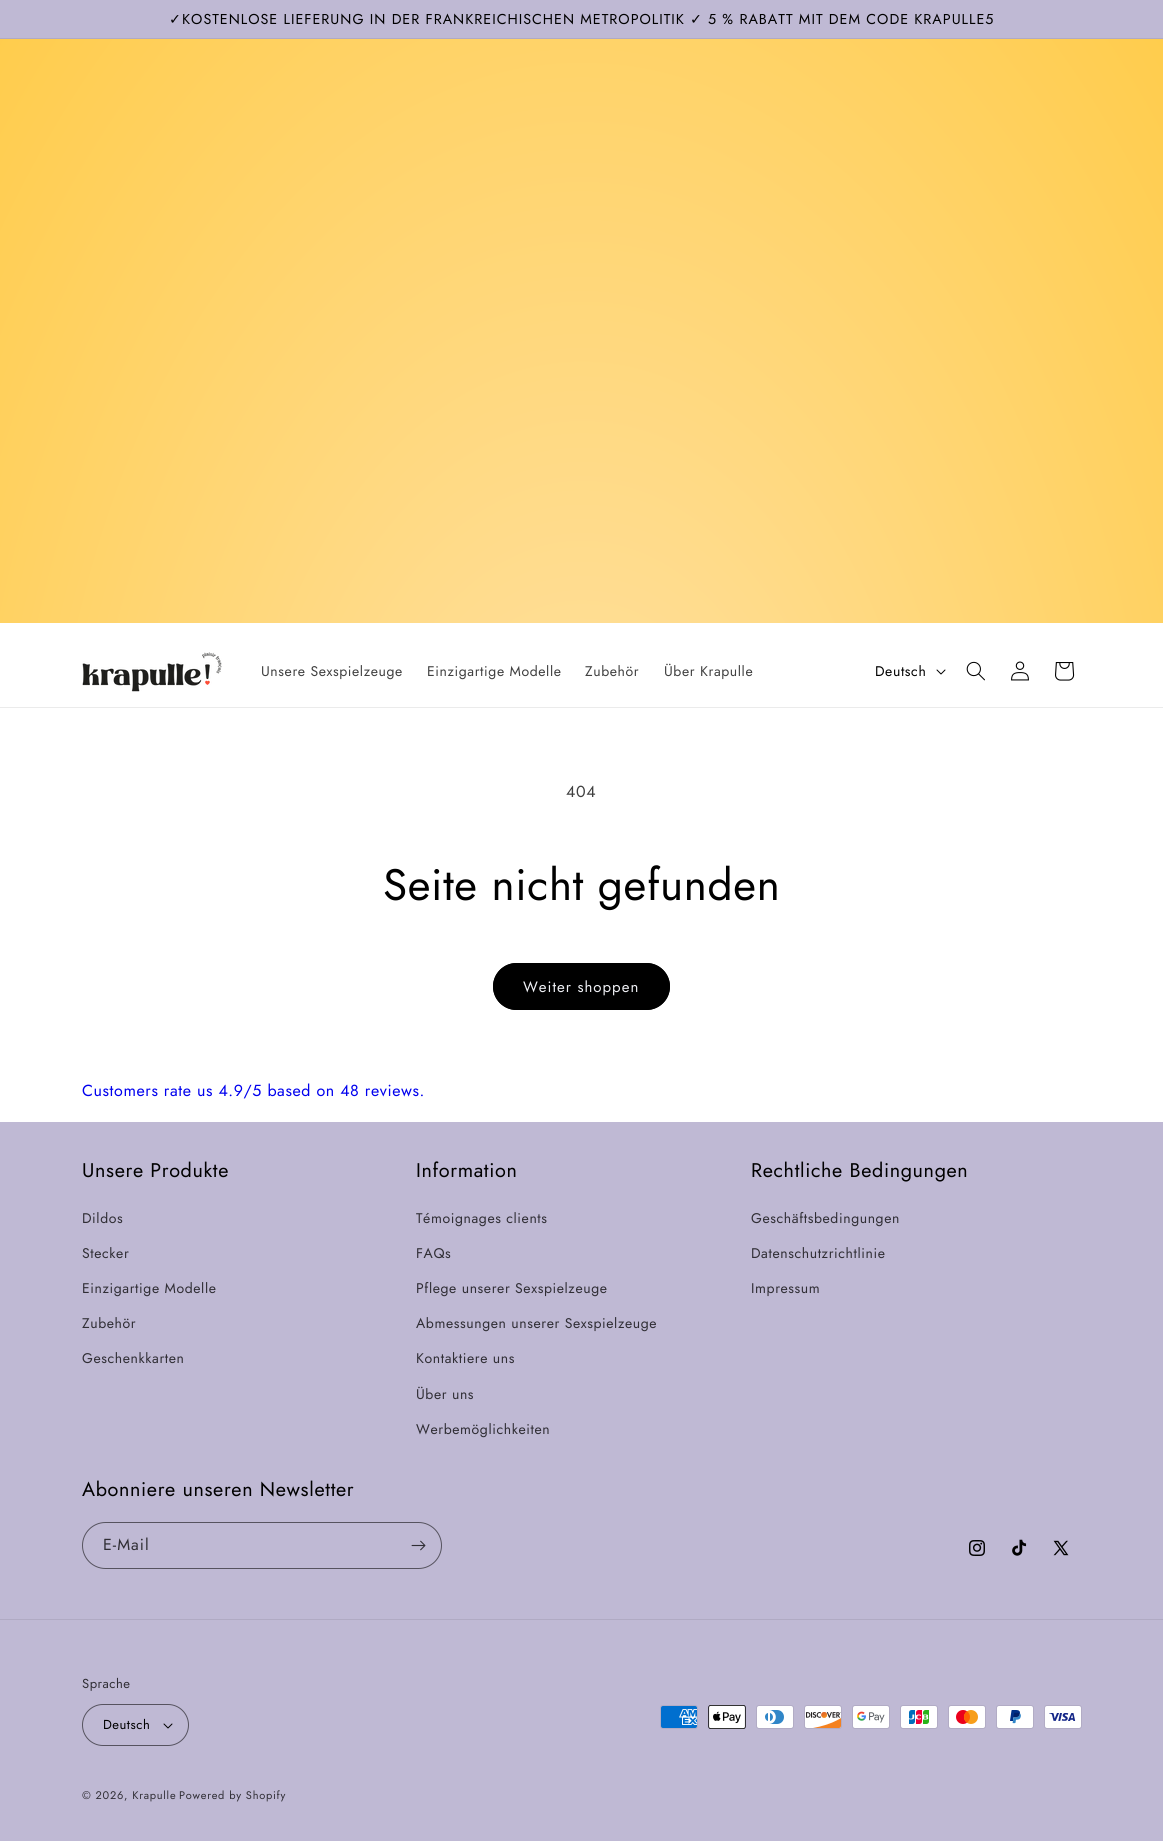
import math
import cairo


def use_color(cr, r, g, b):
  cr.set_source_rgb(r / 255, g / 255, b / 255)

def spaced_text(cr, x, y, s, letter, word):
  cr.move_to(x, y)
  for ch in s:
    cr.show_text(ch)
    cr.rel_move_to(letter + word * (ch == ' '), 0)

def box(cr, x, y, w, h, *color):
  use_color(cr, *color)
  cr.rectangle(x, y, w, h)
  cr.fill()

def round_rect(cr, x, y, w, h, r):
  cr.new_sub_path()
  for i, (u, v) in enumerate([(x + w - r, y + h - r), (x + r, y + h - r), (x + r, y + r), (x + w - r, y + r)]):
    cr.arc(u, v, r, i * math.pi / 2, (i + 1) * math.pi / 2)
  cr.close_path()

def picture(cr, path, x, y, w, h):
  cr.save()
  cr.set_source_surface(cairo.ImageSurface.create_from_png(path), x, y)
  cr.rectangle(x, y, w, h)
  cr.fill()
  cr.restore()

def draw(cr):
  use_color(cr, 255, 255, 255)
  cr.paint()
  box(cr, 0, 0, 1163, 38, 191, 185, 212)
  box(cr, 0, 38, 1163, 1, 176, 170, 195)
  gradient = cairo.RadialGradient(0, 0, 0, 0, 0, 1)
  gradient.set_matrix(cairo.Matrix(1 / 822, 0, 0, 1 / 1302, -1 * 582 / 822, -1 * 921 / 1302))
  gradient.add_color_stop_rgba(0, 1, 0.886, 0.655, 1)
  gradient.add_color_stop_rgba(1, 1, 0.8, 0.294, 1)
  cr.set_source(gradient)
  cr.rectangle(0, 39, 1163, 584)
  cr.fill()
  box(cr, 0, 707, 1163, 1, 235, 235, 235)
  picture(cr, "img_01.png", 82, 652, 140, 40)
  picture(cr, "img_02.png", 936, 669, 10, 6)
  picture(cr, "img_03.png", 966, 661, 19, 20)
  picture(cr, "img_04.png", 1011, 661, 18, 20)
  picture(cr, "img_05.png", 1055, 662, 20, 19)
  use_color(cr, 0, 0, 0)
  round_rect(cr, 493, 963, 177, 47, 23.5)
  cr.fill()
  round_rect(cr, 493.5, 963.5, 176, 46, 23)
  cr.set_line_width(1)
  cr.stroke()
  box(cr, 0, 1122, 1163, 719, 191, 185, 212)
  round_rect(cr, 82.5, 1522.5, 359, 46, 23)
  use_color(cr, 86, 83, 95)
  cr.stroke()
  picture(cr, "img_06.png", 411, 1540, 15, 11)
  picture(cr, "img_07.png", 969, 1540, 16, 16)
  picture(cr, "img_08.png", 1012, 1539, 15, 17)
  picture(cr, "img_09.png", 1053, 1540, 16, 16)
  box(cr, 0, 1619, 1163, 1, 176, 170, 195)
  picture(cr, "img_10.png", 163, 1723, 10, 6)
  round_rect(cr, 82.5, 1704.5, 106, 41, 20.5)
  use_color(cr, 86, 83, 95)
  cr.stroke()
  picture(cr, "img_11.png", 660, 1705, 38, 24)
  picture(cr, "img_12.png", 708, 1705, 38, 24)
  picture(cr, "img_13.png", 756, 1705, 38, 24)
  picture(cr, "img_14.png", 804, 1705, 38, 24)
  picture(cr, "img_15.png", 852, 1705, 38, 24)
  picture(cr, "img_16.png", 900, 1705, 38, 24)
  picture(cr, "img_17.png", 948, 1705, 38, 24)
  picture(cr, "img_18.png", 996, 1705, 38, 24)
  picture(cr, "img_19.png", 1044, 1705, 38, 24)
  cr.select_font_face("DejaVu Sans")
  cr.set_font_size(14.3)
  use_color(cr, 0, 0, 0)
  spaced_text(cr, 169, 24, "✓", 1, 0)
  cr.select_font_face("Jost")
  spaced_text(cr, 182, 24, "KOSTENLOSE LIEFERUNG IN DER FRANKREICHISCHEN METROPOLITIK", 1, 0)
  cr.select_font_face("DejaVu Sans")
  spaced_text(cr, 690, 24, "✓", 1, 0)
  cr.select_font_face("Jost")
  spaced_text(cr, 708, 24, "5 % RABATT MIT DEM CODE KRAPULLE5", 1, 0)
  cr.set_font_size(14)
  use_color(cr, 64, 64, 64)
  spaced_text(cr, 261, 676, "Unsere Sexspielzeuge", 0.6, 0)
  spaced_text(cr, 427, 676, "Einzigartige Modelle", 0.6, 0)
  spaced_text(cr, 585, 676, "Zubehör", 0.6, 0)
  spaced_text(cr, 664, 676, "Über Krapulle", 0.6, 0)
  use_color(cr, 0, 0, 0)
  spaced_text(cr, 875, 676, "Deutsch", 0.6, 0)
  cr.set_font_size(16)
  use_color(cr, 64, 64, 64)
  spaced_text(cr, 566, 797, "404", 0.6, 0)
  cr.set_font_size(44)
  use_color(cr, 0, 0, 0)
  spaced_text(cr, 383, 900, "Seite nicht gefunden", 0.65, 0)
  cr.set_font_size(15)
  use_color(cr, 239, 240, 245)
  spaced_text(cr, 523, 992, "Weiter shoppen", 1, 0)
  cr.set_font_size(16)
  use_color(cr, 0, 0, 238)
  spaced_text(cr, 82, 1096, "Customers rate us 4.9/5 based on 48 reviews.", 0.6, 0)
  cr.set_font_size(19.75)
  use_color(cr, 0, 0, 0)
  spaced_text(cr, 82, 1177, "Unsere Produkte", 0.65, 0)
  cr.set_font_size(14)
  use_color(cr, 48, 46, 53)
  spaced_text(cr, 82, 1223, "Dildos", 0.6, 0)
  spaced_text(cr, 82, 1258, "Stecker", 0.6, 0)
  spaced_text(cr, 82, 1293, "Einzigartige Modelle", 0.6, 0)
  spaced_text(cr, 82, 1328, "Zubehör", 0.6, 0)
  spaced_text(cr, 82, 1363, "Geschenkkarten", 0.6, 0)
  cr.set_font_size(19.75)
  use_color(cr, 0, 0, 0)
  spaced_text(cr, 416, 1177, "Information", 0.65, 0)
  cr.set_font_size(14)
  use_color(cr, 48, 46, 53)
  spaced_text(cr, 416, 1223, "Témoignages clients", 0.6, 0)
  spaced_text(cr, 416, 1258, "FAQs", 0.6, 0)
  spaced_text(cr, 416, 1293, "Pflege unserer Sexspielzeuge", 0.6, 0)
  spaced_text(cr, 416, 1328, "Abmessungen unserer Sexspielzeuge", 0.6, 0)
  spaced_text(cr, 416, 1363, "Kontaktiere uns", 0.6, 0)
  spaced_text(cr, 416, 1399, "Über uns", 0.6, 0)
  spaced_text(cr, 416, 1434, "Werbemöglichkeiten", 0.6, 0)
  cr.set_font_size(19.75)
  use_color(cr, 0, 0, 0)
  spaced_text(cr, 751, 1177, "Rechtliche Bedingungen", 0.65, 0)
  cr.set_font_size(14)
  use_color(cr, 48, 46, 53)
  spaced_text(cr, 751, 1223, "Geschäftsbedingungen", 0.6, 0)
  spaced_text(cr, 751, 1258, "Datenschutzrichtlinie", 0.6, 0)
  spaced_text(cr, 751, 1293, "Impressum", 0.6, 0)
  cr.set_font_size(19.75)
  use_color(cr, 0, 0, 0)
  spaced_text(cr, 82, 1496, "Abonniere unseren Newsletter", 0.65, 0)
  cr.set_font_size(16)
  use_color(cr, 48, 46, 53)
  spaced_text(cr, 103, 1550, "E-Mail", 1, 0)
  cr.set_font_size(13)
  spaced_text(cr, 82, 1688, "Sprache", 0.5, 0)
  use_color(cr, 0, 0, 0)
  spaced_text(cr, 103, 1729, "Deutsch", 0.5, 0)
  cr.set_font_size(11)
  use_color(cr, 48, 46, 53)
  spaced_text(cr, 82, 1799, "© 2026, Krapulle", 0.75, 0)
  spaced_text(cr, 179, 1799, "Powered by Shopify", 0.75, 0)


surface = cairo.ImageSurface(cairo.FORMAT_RGB24, 1163, 1841)
cr = cairo.Context(surface)
options = cairo.FontOptions()
options.set_hint_metrics(cairo.HINT_METRICS_OFF)
options.set_hint_style(cairo.HINT_STYLE_NONE)
cr.set_font_options(options)
cr.set_miter_limit(4)
draw(cr)
surface.write_to_png("out.png")
